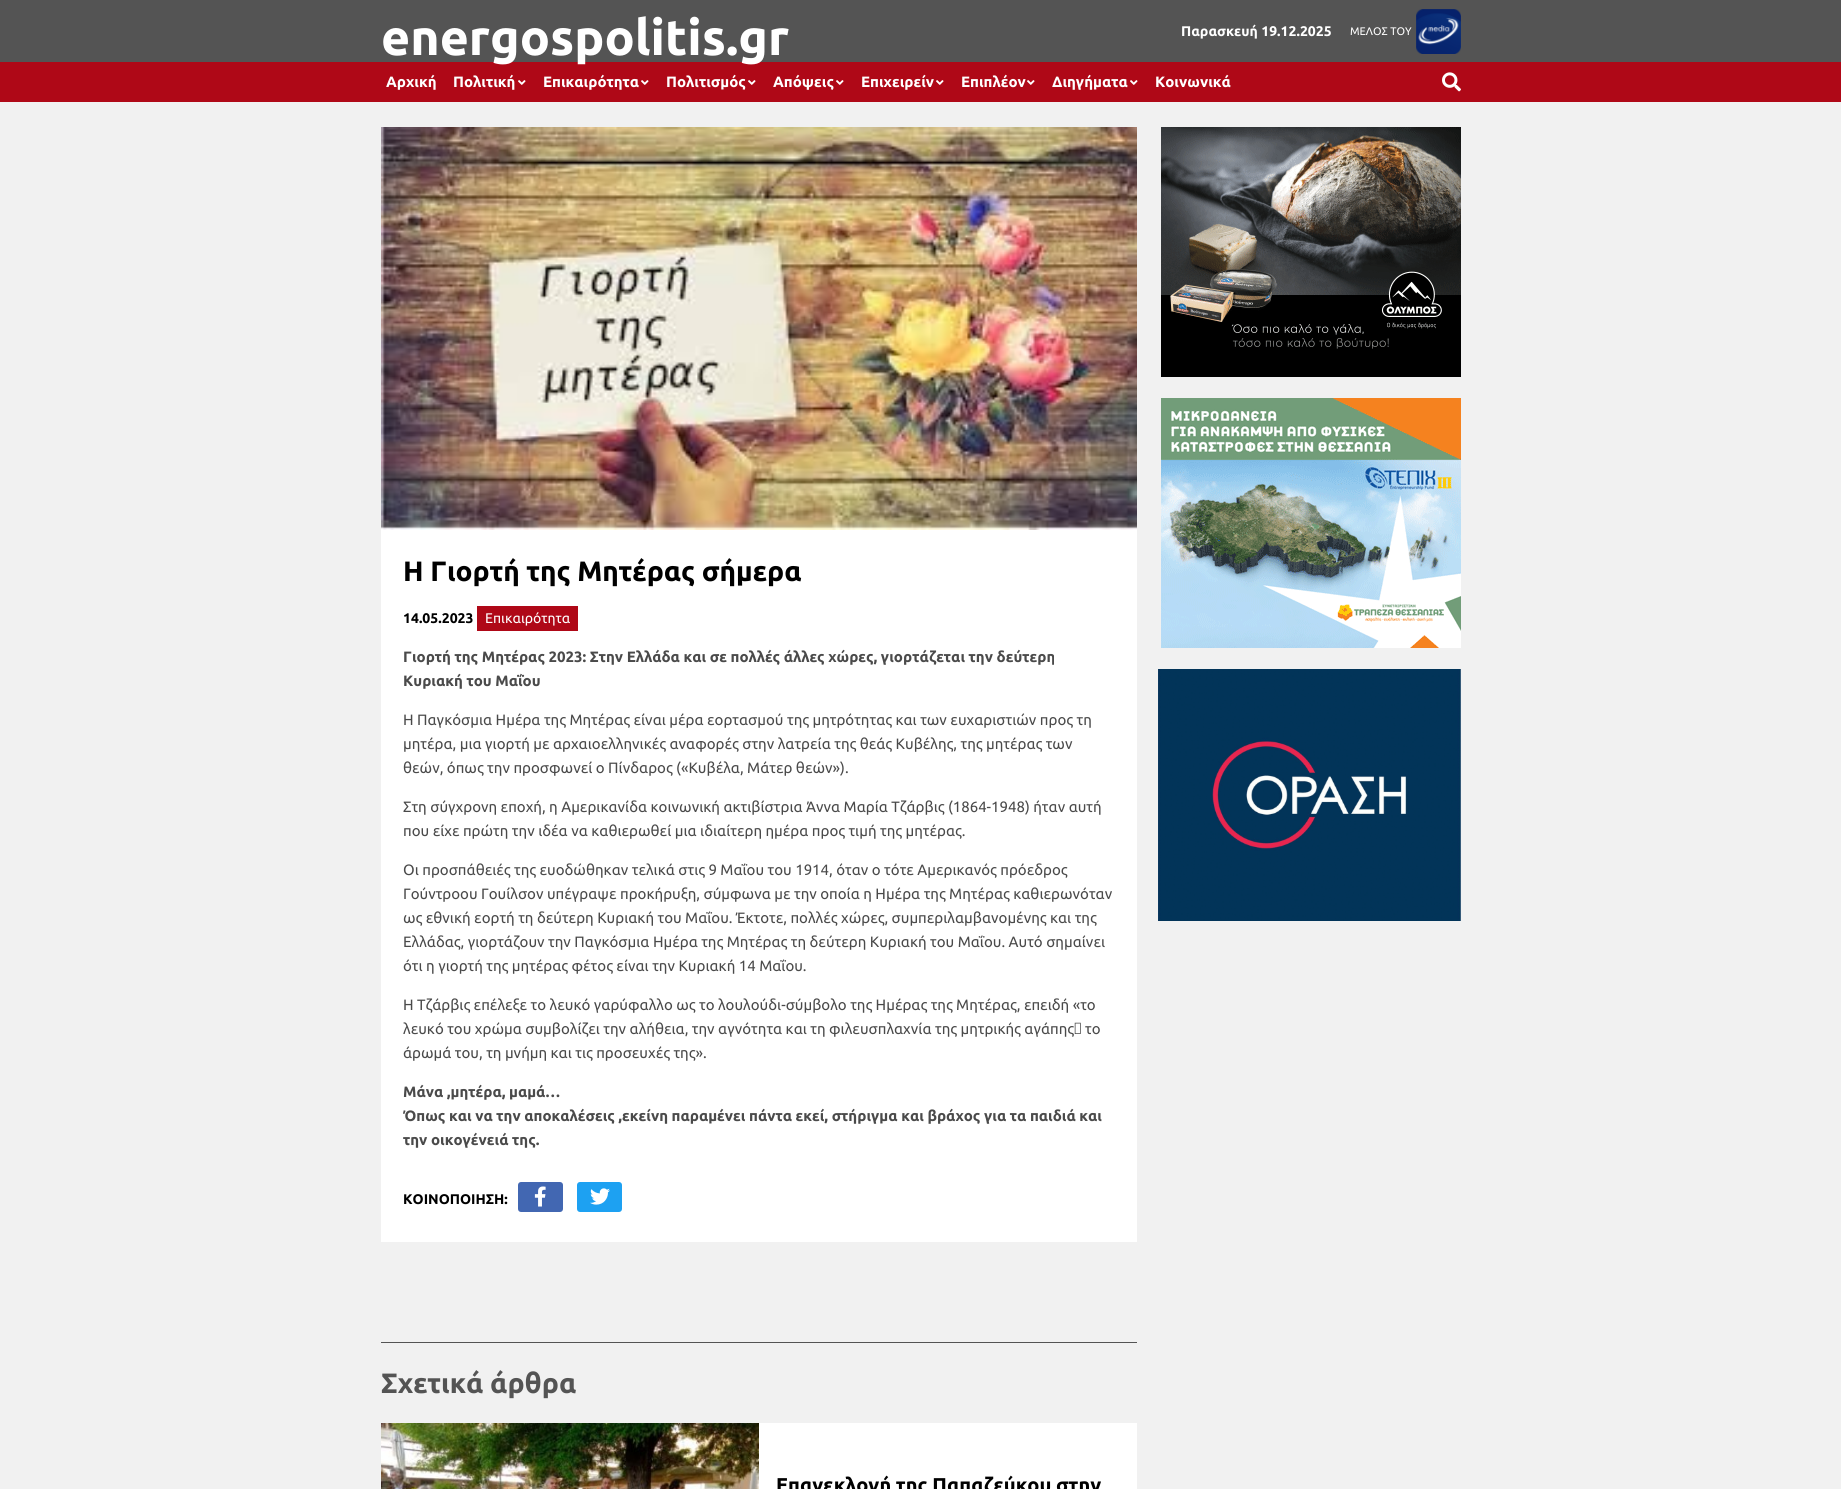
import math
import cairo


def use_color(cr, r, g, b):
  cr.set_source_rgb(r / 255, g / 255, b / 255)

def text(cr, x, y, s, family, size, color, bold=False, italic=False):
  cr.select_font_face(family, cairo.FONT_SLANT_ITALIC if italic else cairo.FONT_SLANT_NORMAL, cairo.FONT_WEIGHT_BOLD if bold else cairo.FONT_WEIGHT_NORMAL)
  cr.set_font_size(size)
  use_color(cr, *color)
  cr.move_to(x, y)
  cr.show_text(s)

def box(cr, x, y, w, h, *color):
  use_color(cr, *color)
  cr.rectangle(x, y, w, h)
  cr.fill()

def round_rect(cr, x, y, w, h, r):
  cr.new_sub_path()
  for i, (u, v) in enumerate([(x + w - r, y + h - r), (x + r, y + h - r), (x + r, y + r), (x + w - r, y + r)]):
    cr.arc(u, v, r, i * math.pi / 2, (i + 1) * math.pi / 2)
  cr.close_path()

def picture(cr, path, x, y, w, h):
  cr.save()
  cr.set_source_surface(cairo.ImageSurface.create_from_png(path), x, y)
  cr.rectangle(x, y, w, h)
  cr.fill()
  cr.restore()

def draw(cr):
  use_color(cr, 241, 241, 241)
  cr.paint()
  box(cr, 0, 0, 1841, 62, 84, 84, 84)
  picture(cr, "img_01.png", 1416, 9, 45, 45)
  box(cr, 0, 62, 1841, 40, 175, 8, 23)
  picture(cr, "img_02.png", 518, 80, 8, 5)
  picture(cr, "img_02.png", 641, 80, 8, 5)
  picture(cr, "img_02.png", 748, 80, 8, 5)
  picture(cr, "img_02.png", 836, 80, 8, 5)
  picture(cr, "img_02.png", 936, 80, 8, 5)
  picture(cr, "img_02.png", 1027, 80, 8, 5)
  picture(cr, "img_02.png", 1130, 80, 8, 5)
  picture(cr, "img_03.png", 1442, 72, 19, 20)
  box(cr, 381, 530, 756, 712, 255, 255, 255)
  picture(cr, "img_04.png", 381, 127, 756, 403)
  box(cr, 477, 606, 101, 25, 175, 8, 23)
  use_color(cr, 66, 103, 178)
  round_rect(cr, 518, 1182, 45, 30, 3)
  cr.fill()
  picture(cr, "img_05.png", 534, 1186, 12, 21)
  use_color(cr, 29, 161, 242)
  round_rect(cr, 577, 1182, 45, 30, 3)
  cr.fill()
  picture(cr, "img_06.png", 590, 1188, 20, 17)
  box(cr, 381, 1342, 756, 1, 84, 84, 84)
  box(cr, 759, 1423, 378, 66, 255, 255, 255)
  picture(cr, "img_07.png", 381, 1423, 378, 66)
  picture(cr, "img_08.png", 1161, 127, 300, 250)
  picture(cr, "img_09.png", 1161, 398, 300, 250)
  picture(cr, "img_10.png", 1158, 669, 303, 252)
  text(cr, 381, 55, "energospolitis.gr", "Ubuntu", 50, (255, 255, 255), bold=True)
  text(cr, 1181, 36, "Παρασκευή 19.12.2025", "Ubuntu", 14, (255, 255, 255), bold=True)
  text(cr, 1350, 35, "ΜΕΛΟΣ ΤΟΥ", "Ubuntu", 11, (255, 255, 255))
  text(cr, 386, 87, "Αρχική", "Ubuntu", 15, (255, 255, 255), bold=True)
  text(cr, 453, 87, "Πολιτική", "Ubuntu", 15, (255, 255, 255), bold=True)
  text(cr, 543, 87, "Επικαιρότητα", "Ubuntu", 15, (255, 255, 255), bold=True)
  text(cr, 666, 87, "Πολιτισμός", "Ubuntu", 15, (255, 255, 255), bold=True)
  text(cr, 773, 87, "Απόψεις", "Ubuntu", 15, (255, 255, 255), bold=True)
  text(cr, 861, 87, "Επιχειρείν", "Ubuntu", 15, (255, 255, 255), bold=True)
  text(cr, 961, 87, "Επιπλέον", "Ubuntu", 15, (255, 255, 255), bold=True)
  text(cr, 1052, 87, "Διηγήματα", "Ubuntu", 15, (255, 255, 255), bold=True)
  text(cr, 1155, 87, "Κοινωνικά", "Ubuntu", 15, (255, 255, 255), bold=True)
  text(cr, 403, 581, "Η Γιορτή της Μητέρας σήμερα", "Ubuntu", 28, (0, 0, 0), bold=True)
  text(cr, 403, 623, "14.05.2023", "Ubuntu", 14, (0, 0, 0), bold=True)
  text(cr, 485, 623, "Επικαιρότητα", "Ubuntu", 14, (255, 255, 255))
  text(cr, 403, 662, "Γιορτή της Μητέρας 2023: Στην Ελλάδα και σε πολλές άλλες χώρες, γιορτάζεται την δεύτερη", "Ubuntu", 15, (74, 74, 74), bold=True)
  text(cr, 403, 686, "Κυριακή του Μαΐου", "Ubuntu", 15, (74, 74, 74), bold=True)
  text(cr, 403, 725, "H Παγκόσμια Ημέρα της Μητέρας είναι μέρα εορτασμού της μητρότητας και των ευχαριστιών προς τη", "Ubuntu", 15, (74, 74, 74))
  text(cr, 403, 749, "μητέρα, μια γιορτή με αρχαιοελληνικές αναφορές στην λατρεία της θεάς Κυβέλης, της μητέρας των", "Ubuntu", 15, (74, 74, 74))
  text(cr, 403, 773, "θεών, όπως την προσφωνεί ο Πίνδαρος («Κυβέλα, Μάτερ θεών»).", "Ubuntu", 15, (74, 74, 74))
  text(cr, 403, 812, "Στη σύγχρονη εποχή, η Αμερικανίδα κοινωνική ακτιβίστρια Άννα Μαρία Τζάρβις (1864-1948) ήταν αυτή", "Ubuntu", 15, (74, 74, 74))
  text(cr, 403, 836, "που είχε πρώτη την ιδέα να καθιερωθεί μια ιδιαίτερη ημέρα προς τιμή της μητέρας.", "Ubuntu", 15, (74, 74, 74))
  text(cr, 403, 875, "Οι προσπάθειές της ευοδώθηκαν τελικά στις 9 Μαΐου του 1914, όταν ο τότε Αμερικανός πρόεδρος", "Ubuntu", 15, (74, 74, 74))
  text(cr, 403, 899, "Γούντροου Γουίλσον υπέγραψε προκήρυξη, σύμφωνα με την οποία η Ημέρα της Μητέρας καθιερωνόταν", "Ubuntu", 15, (74, 74, 74))
  text(cr, 403, 923, "ως εθνική εορτή τη δεύτερη Κυριακή του Μαΐου. Έκτοτε, πολλές χώρες, συμπεριλαμβανομένης και της", "Ubuntu", 15, (74, 74, 74))
  text(cr, 403, 947, "Ελλάδας, γιορτάζουν την Παγκόσμια Ημέρα της Μητέρας τη δεύτερη Κυριακή του Μαΐου. Αυτό σημαίνει", "Ubuntu", 15, (74, 74, 74))
  text(cr, 403, 971, "ότι η γιορτή της μητέρας φέτος είναι την Κυριακή 14 Μαΐου.", "Ubuntu", 15, (74, 74, 74))
  text(cr, 403, 1010, "H Τζάρβις επέλεξε το λευκό γαρύφαλλο ως το λουλούδι-σύμβολο της Ημέρας της Μητέρας, επειδή «το", "Ubuntu", 15, (74, 74, 74))
  text(cr, 403, 1034, "λευκό του χρώμα συμβολίζει την αλήθεια, την αγνότητα και τη φιλευσπλαχνία της μητρικής αγάπης· το", "Ubuntu", 15, (74, 74, 74))
  text(cr, 403, 1058, "άρωμά του, τη μνήμη και τις προσευχές της».", "Ubuntu", 15, (74, 74, 74))
  text(cr, 403, 1097, "Μάνα ,μητέρα, μαμά…", "Ubuntu", 15, (74, 74, 74), bold=True)
  text(cr, 403, 1121, "Όπως και να την αποκαλέσεις ,εκείνη παραμένει πάντα εκεί, στήριγμα και βράχος για τα παιδιά και", "Ubuntu", 15, (74, 74, 74), bold=True)
  text(cr, 403, 1145, "την οικογένειά της.", "Ubuntu", 15, (74, 74, 74), bold=True)
  text(cr, 403, 1204, "ΚΟΙΝΟΠΟΙΗΣΗ:", "Ubuntu", 14, (0, 0, 0), bold=True)
  text(cr, 381, 1393, "Σχετικά άρθρα", "Ubuntu", 28, (84, 84, 84), bold=True)
  text(cr, 776, 1492, "Επανεκλογή της Παπαζεύκου στην", "Ubuntu", 20, (0, 0, 0), bold=True)


surface = cairo.ImageSurface(cairo.FORMAT_RGB24, 1841, 1489)
cr = cairo.Context(surface)
options = cairo.FontOptions()
options.set_hint_metrics(cairo.HINT_METRICS_OFF)
options.set_hint_style(cairo.HINT_STYLE_NONE)
cr.set_font_options(options)
cr.set_miter_limit(4)
draw(cr)
surface.write_to_png("out.png")
